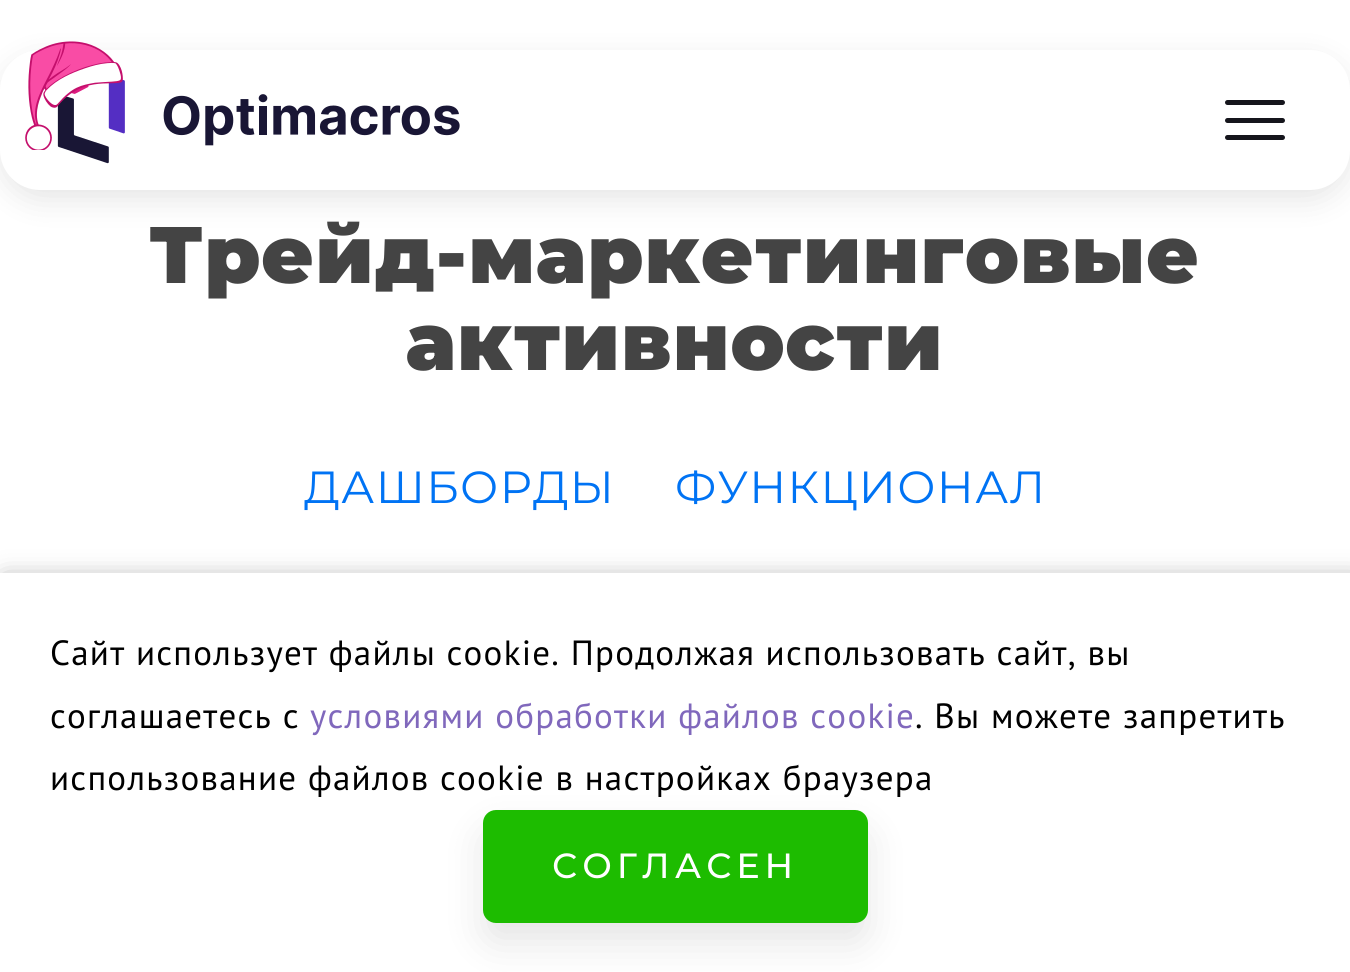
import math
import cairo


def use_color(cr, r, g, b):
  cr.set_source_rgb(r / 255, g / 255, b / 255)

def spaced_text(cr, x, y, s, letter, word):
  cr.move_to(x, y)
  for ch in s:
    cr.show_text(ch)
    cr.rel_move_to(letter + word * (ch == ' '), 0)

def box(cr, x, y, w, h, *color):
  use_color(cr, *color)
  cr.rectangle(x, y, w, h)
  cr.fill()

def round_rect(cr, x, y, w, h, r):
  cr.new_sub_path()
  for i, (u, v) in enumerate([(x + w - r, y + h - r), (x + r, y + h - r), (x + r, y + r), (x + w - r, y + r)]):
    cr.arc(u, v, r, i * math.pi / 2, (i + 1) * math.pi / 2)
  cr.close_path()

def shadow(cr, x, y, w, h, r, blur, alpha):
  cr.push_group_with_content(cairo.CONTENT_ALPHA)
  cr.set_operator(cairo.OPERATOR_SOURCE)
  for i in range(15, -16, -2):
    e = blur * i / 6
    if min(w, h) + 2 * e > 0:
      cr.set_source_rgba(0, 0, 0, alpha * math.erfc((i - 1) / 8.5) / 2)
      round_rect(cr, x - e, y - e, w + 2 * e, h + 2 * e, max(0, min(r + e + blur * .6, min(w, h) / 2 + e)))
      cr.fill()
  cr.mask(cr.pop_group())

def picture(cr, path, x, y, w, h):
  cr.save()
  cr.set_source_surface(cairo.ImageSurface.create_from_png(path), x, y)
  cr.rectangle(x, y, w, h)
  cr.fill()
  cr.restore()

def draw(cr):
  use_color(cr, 255, 255, 255)
  cr.paint()
  use_color(cr, 0, 0, 0)
  shadow(cr, 0, 60, 1350, 140, 40, 15, 0.1)
  use_color(cr, 255, 255, 255)
  round_rect(cr, 0, 50, 1350, 140, 40)
  cr.fill()
  picture(cr, "img_02.png", 57, 79, 403, 85)
  picture(cr, "img_01.png", 25, 41, 98, 109)
  use_color(cr, 21, 21, 28)
  round_rect(cr, 1225, 118, 60, 5, 2.5)
  cr.fill()
  round_rect(cr, 1225, 100, 60, 5, 2.5)
  cr.fill()
  round_rect(cr, 1225, 135, 60, 5, 2.5)
  cr.fill()
  use_color(cr, 0, 0, 0)
  shadow(cr, 5, 580, 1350, 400, 0, 12.5, 0.4)
  box(cr, 0, 573, 1350, 399, 255, 255, 255)
  use_color(cr, 0, 0, 0)
  shadow(cr, 483, 830, 385, 113, 13, 19, 0.1)
  use_color(cr, 29, 188, 0)
  round_rect(cr, 483, 810, 385, 113, 13)
  cr.fill()
  cr.select_font_face("Montserrat Black")
  cr.set_font_size(80)
  use_color(cr, 68, 68, 68)
  spaced_text(cr, 149, 283, "Трейд-маркетинговые", 1.25, 0)
  spaced_text(cr, 406, 370, "активности", 1.25, 0)
  cr.select_font_face("Montserrat")
  cr.set_font_size(45)
  use_color(cr, 0, 115, 244)
  spaced_text(cr, 304, 503, "ДАШБОРДЫ", 1.25, 0)
  spaced_text(cr, 675, 503, "ФУНКЦИОНАЛ", 1.25, 0)
  cr.select_font_face("PT Sans")
  cr.set_font_size(35)
  use_color(cr, 0, 0, 0)
  spaced_text(cr, 50, 665, "Сайт использует файлы cookie. Продолжая использовать сайт, вы", 1.25, 0)
  spaced_text(cr, 50, 728, "соглашаетесь с", 1.25, 0)
  use_color(cr, 128, 104, 188)
  spaced_text(cr, 310, 728, "условиями обработки файлов cookie", 1.25, 0)
  use_color(cr, 0, 0, 0)
  spaced_text(cr, 915, 728, ". Вы можете запретить", 1.25, 0)
  spaced_text(cr, 50, 790, "использование файлов cookie в настройках браузера", 1.25, 0)
  cr.select_font_face("Montserrat Medium")
  use_color(cr, 255, 255, 255)
  spaced_text(cr, 552, 878, "СОГЛАСЕН", 5, 0)


surface = cairo.ImageSurface(cairo.FORMAT_RGB24, 1350, 972)
cr = cairo.Context(surface)
options = cairo.FontOptions()
options.set_hint_metrics(cairo.HINT_METRICS_OFF)
options.set_hint_style(cairo.HINT_STYLE_NONE)
cr.set_font_options(options)
cr.set_miter_limit(4)
draw(cr)
surface.write_to_png("out.png")
